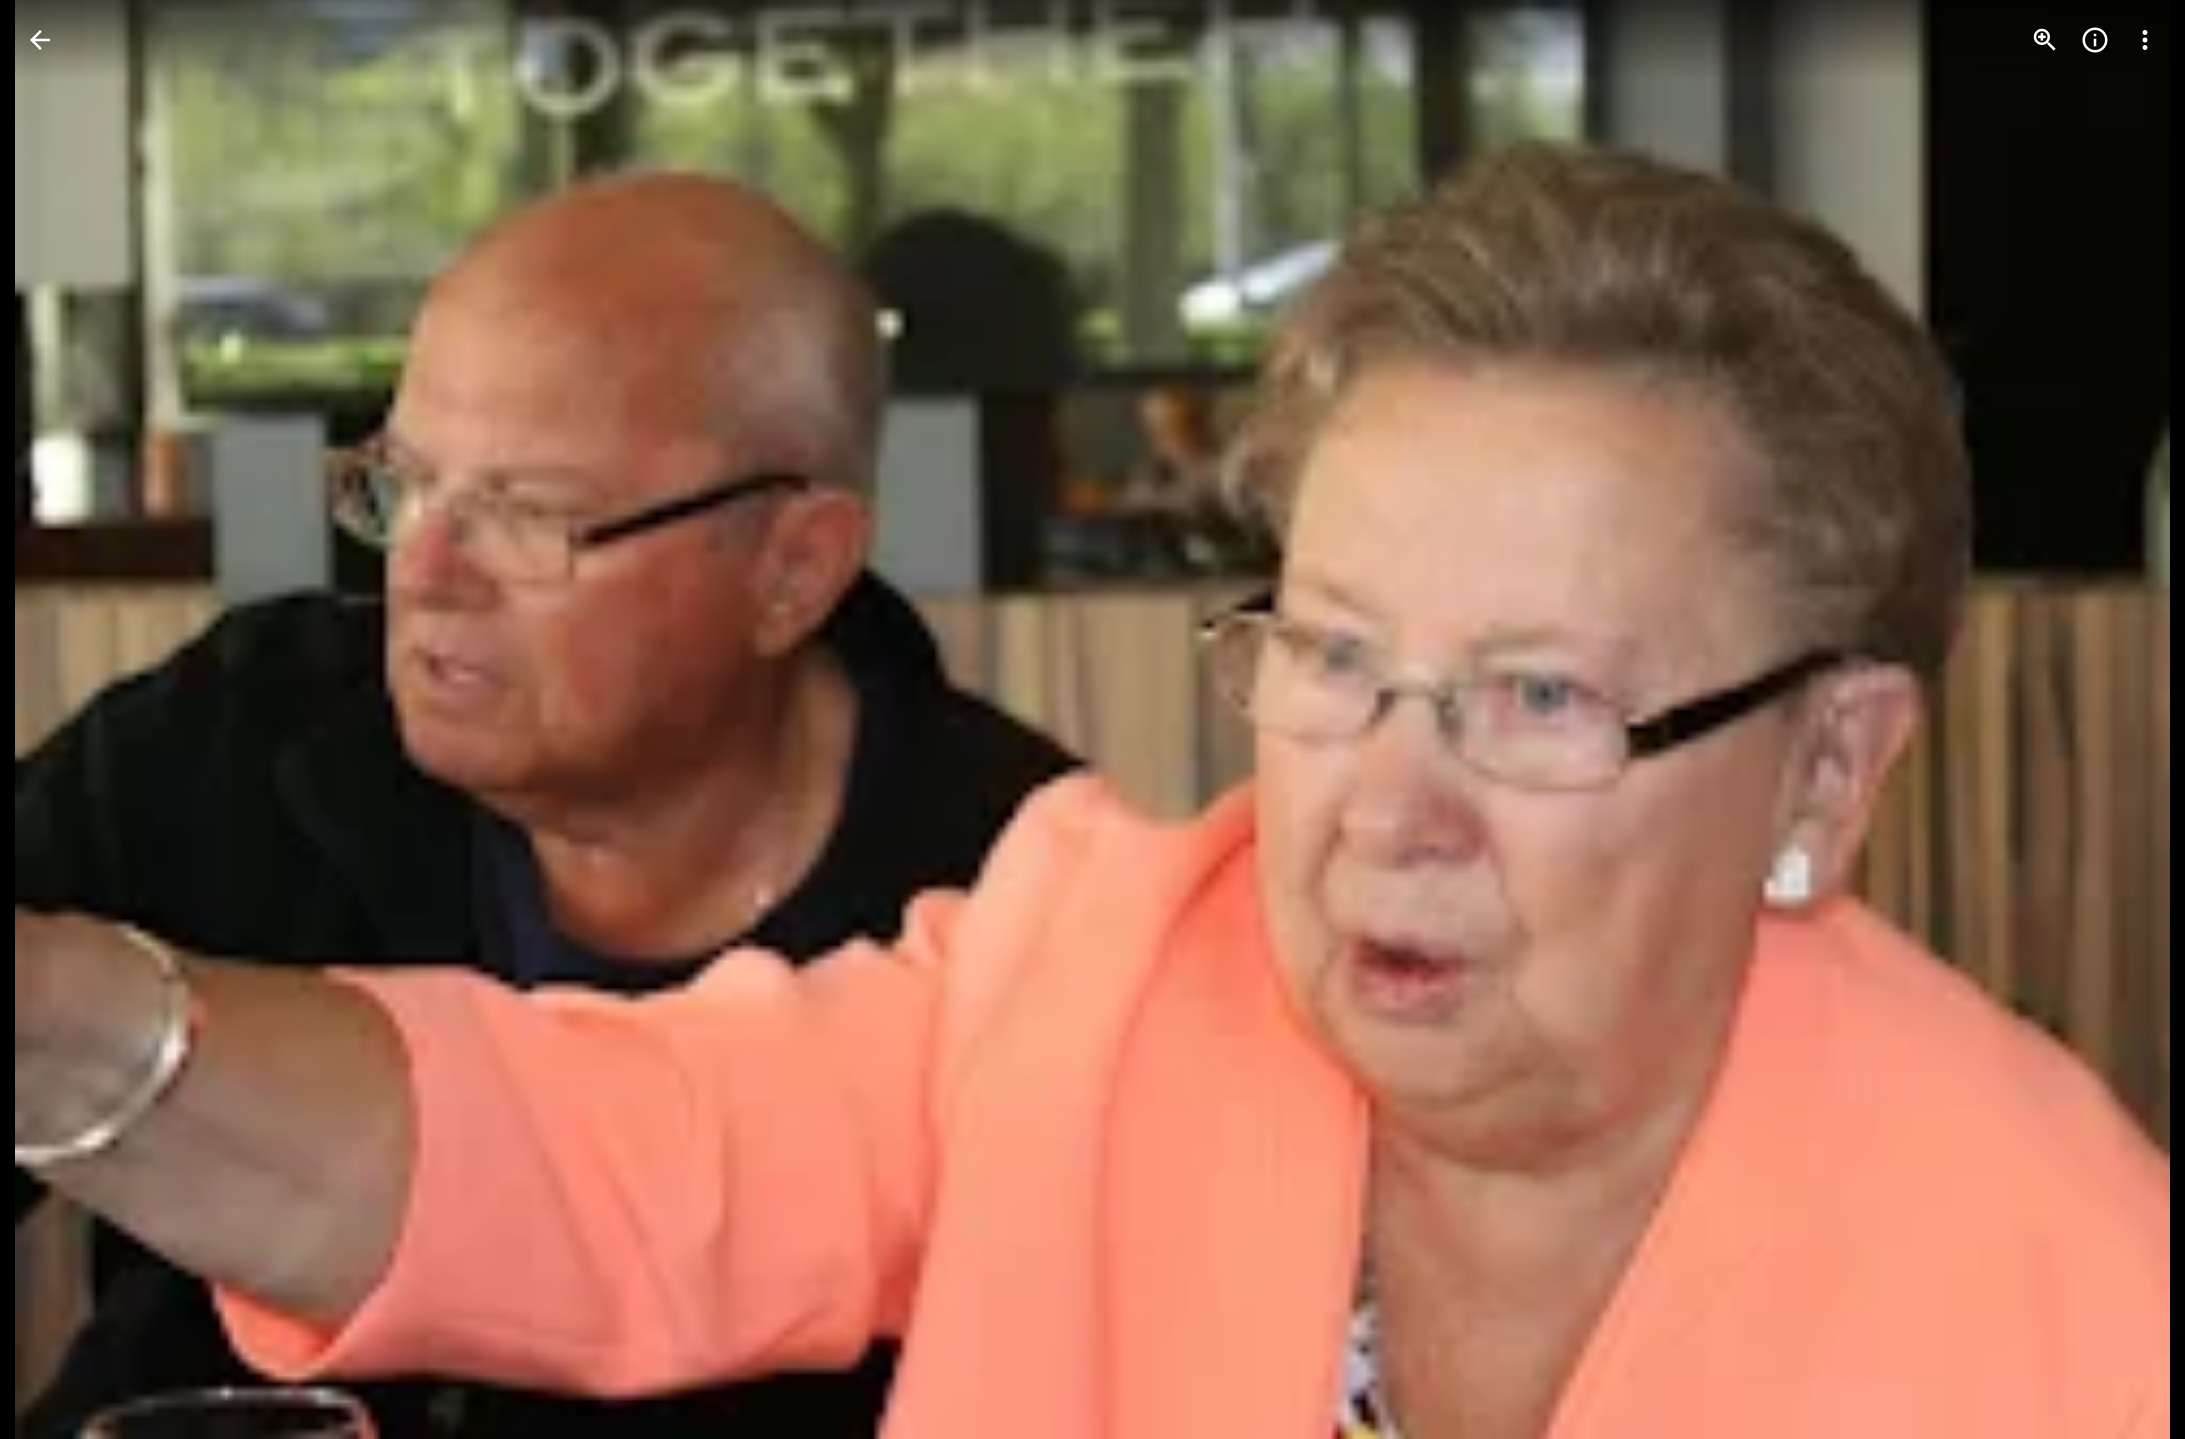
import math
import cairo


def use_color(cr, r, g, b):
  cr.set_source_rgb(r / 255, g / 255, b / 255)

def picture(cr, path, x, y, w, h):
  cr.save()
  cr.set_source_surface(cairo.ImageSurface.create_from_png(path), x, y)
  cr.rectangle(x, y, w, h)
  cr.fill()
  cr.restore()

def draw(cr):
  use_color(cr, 0, 0, 0)
  cr.paint()
  picture(cr, "img_01.png", 15, 0, 2155, 1439)
  picture(cr, "img_02.png", 30, 30, 20, 20)
  picture(cr, "img_03.png", 2033, 28, 23, 23)
  picture(cr, "img_04.png", 2082, 27, 26, 26)
  picture(cr, "img_05.png", 2142, 30, 6, 20)


surface = cairo.ImageSurface(cairo.FORMAT_RGB24, 2185, 1439)
cr = cairo.Context(surface)
options = cairo.FontOptions()
options.set_hint_metrics(cairo.HINT_METRICS_OFF)
options.set_hint_style(cairo.HINT_STYLE_NONE)
cr.set_font_options(options)
cr.set_miter_limit(4)
draw(cr)
surface.write_to_png("out.png")
